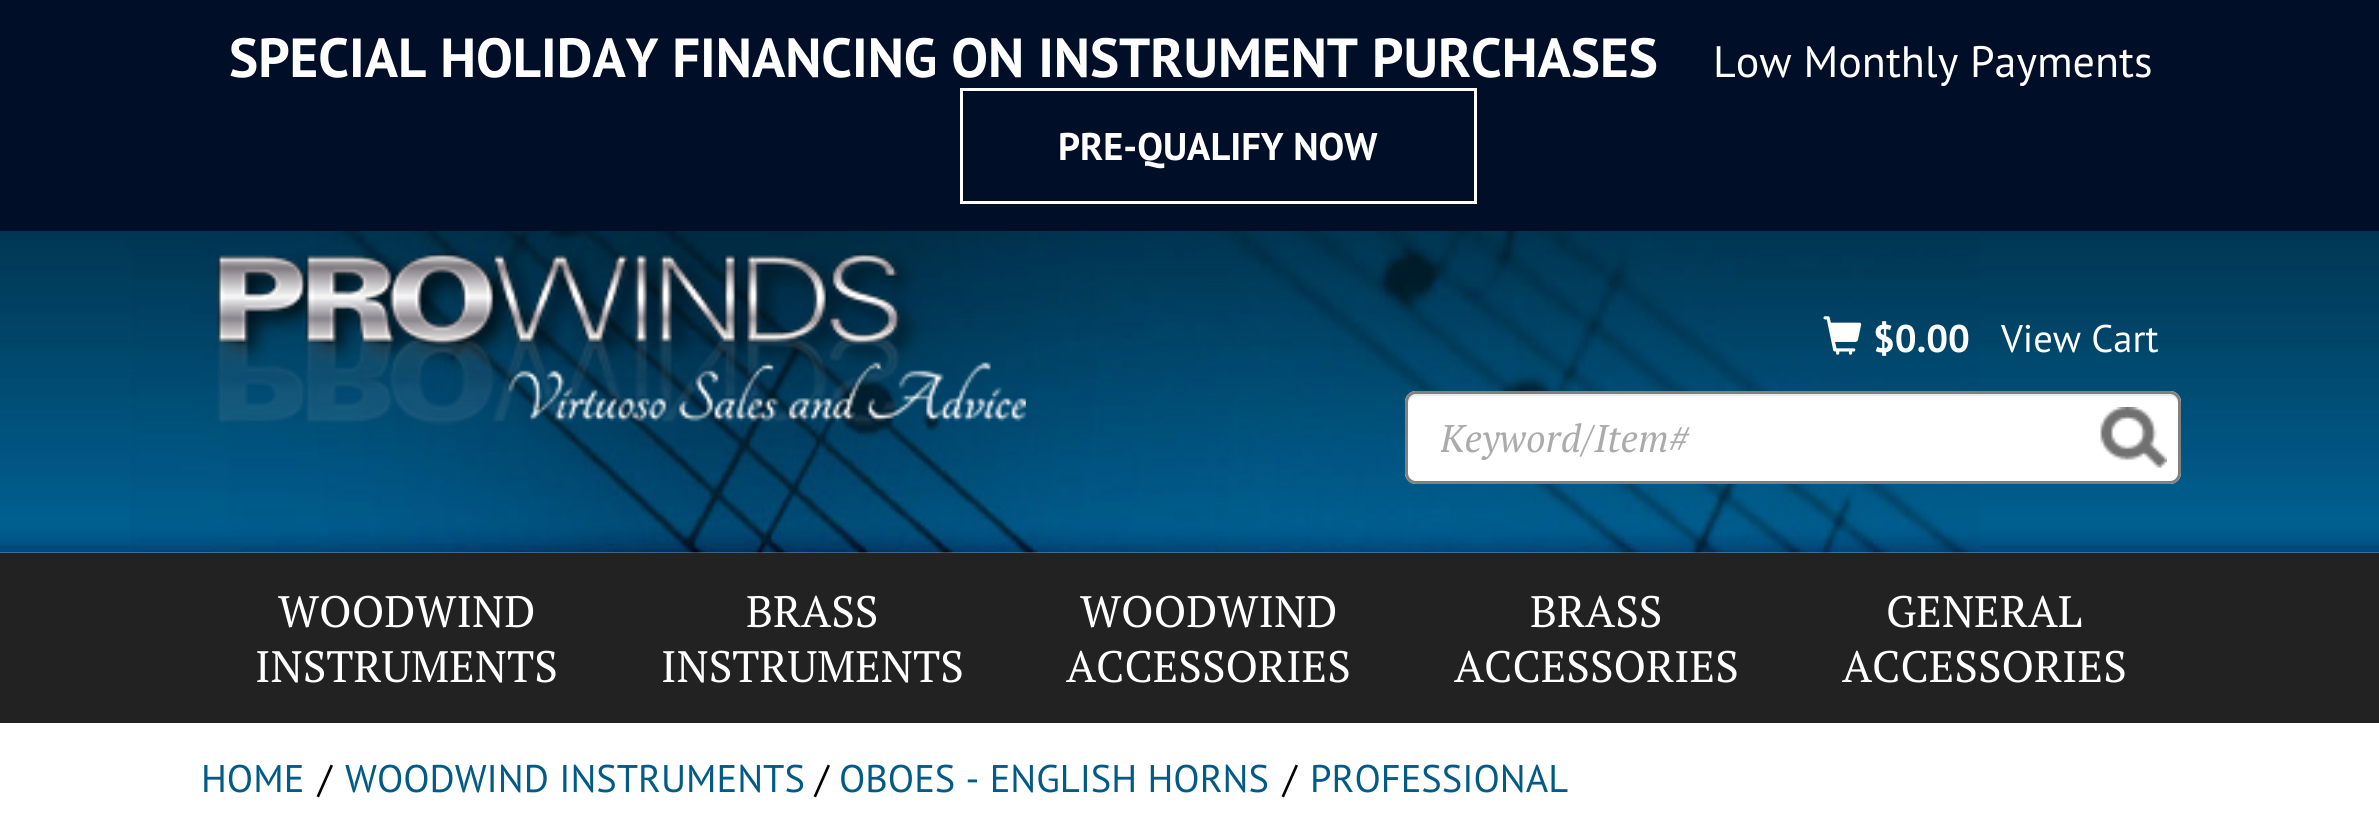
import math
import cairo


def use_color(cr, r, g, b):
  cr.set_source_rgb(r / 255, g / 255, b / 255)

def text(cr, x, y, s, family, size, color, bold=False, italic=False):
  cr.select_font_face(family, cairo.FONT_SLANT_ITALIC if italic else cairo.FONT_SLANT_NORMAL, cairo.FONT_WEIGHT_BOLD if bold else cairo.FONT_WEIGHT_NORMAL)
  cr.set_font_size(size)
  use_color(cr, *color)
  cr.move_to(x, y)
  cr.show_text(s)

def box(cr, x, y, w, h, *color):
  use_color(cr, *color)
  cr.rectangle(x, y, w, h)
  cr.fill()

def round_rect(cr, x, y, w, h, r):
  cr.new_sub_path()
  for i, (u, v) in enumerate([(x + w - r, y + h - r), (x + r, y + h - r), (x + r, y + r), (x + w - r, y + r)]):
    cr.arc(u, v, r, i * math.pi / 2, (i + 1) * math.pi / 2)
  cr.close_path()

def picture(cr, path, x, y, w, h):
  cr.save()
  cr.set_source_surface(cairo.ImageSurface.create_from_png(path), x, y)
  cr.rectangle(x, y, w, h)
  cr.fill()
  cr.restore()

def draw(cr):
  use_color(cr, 255, 255, 255)
  cr.paint()
  box(cr, 0, 0, 2379, 231, 0, 14, 40)
  cr.rectangle(961.5, 89.5, 514, 113)
  use_color(cr, 255, 255, 255)
  cr.set_line_width(3)
  cr.stroke()
  picture(cr, "img_01.png", 0, 231, 2379, 322)
  picture(cr, "img_02.png", 215, 252, 811, 174)
  picture(cr, "img_03.png", 1823, 316, 39, 39)
  round_rect(cr, 1405, 391, 776, 93, 11)
  cr.fill()
  use_color(cr, 236, 236, 236)
  cr.new_path()
  cr.move_to(1416, 396)
  cr.line_to(2170, 396)
  cr.curve_to(2174, 396, 2178, 400, 2178, 404)
  cr.line_to(2178, 401)
  cr.curve_to(2178, 397, 2174, 393, 2170, 393)
  cr.line_to(1416, 393)
  cr.curve_to(1412, 393, 1408, 397, 1408, 401)
  cr.line_to(1408, 404)
  cr.curve_to(1408, 400, 1412, 396, 1416, 396)
  cr.close_path()
  cr.fill()
  round_rect(cr, 1406.5, 392.5, 773, 90, 9.5)
  use_color(cr, 129, 129, 129)
  cr.stroke()
  picture(cr, "img_04.png", 2100, 407, 67, 61)
  box(cr, 0, 553, 2379, 170, 34, 34, 34)
  text(cr, 229, 77, "SPECIAL HOLIDAY FINANCING ON INSTRUMENT PURCHASES", "PT Sans", 55, (255, 255, 255), bold=True)
  text(cr, 1713, 77, "Low Monthly Payments", "PT Sans", 44, (255, 255, 255))
  text(cr, 1058, 160, "PRE-QUALIFY NOW", "PT Sans", 38.5, (255, 255, 255), bold=True)
  text(cr, 1873, 352, "$0.00", "PT Sans", 38.5, (255, 255, 255), bold=True)
  text(cr, 2001, 352, "View Cart", "PT Sans", 38.5, (255, 255, 255))
  cr.save()
  cr.rectangle(1441, 413, 704, 52)
  cr.clip()
  text(cr, 1440, 452, "Keyword/Item#", "PT Serif", 38.5, (171, 171, 171), italic=True)
  cr.restore()
  text(cr, 278, 627, "WOODWIND", "PT Serif", 44, (255, 255, 255))
  text(cr, 255, 682, "INSTRUMENTS", "PT Serif", 44, (255, 255, 255))
  text(cr, 746, 627, "BRASS", "PT Serif", 44, (255, 255, 255))
  text(cr, 661, 682, "INSTRUMENTS", "PT Serif", 44, (255, 255, 255))
  text(cr, 1080, 627, "WOODWIND", "PT Serif", 44, (255, 255, 255))
  text(cr, 1066, 682, "ACCESSORIES", "PT Serif", 44, (255, 255, 255))
  text(cr, 1530, 627, "BRASS", "PT Serif", 44, (255, 255, 255))
  text(cr, 1454, 682, "ACCESSORIES", "PT Serif", 44, (255, 255, 255))
  text(cr, 1886, 627, "GENERAL", "PT Serif", 44, (255, 255, 255))
  text(cr, 1842, 682, "ACCESSORIES", "PT Serif", 44, (255, 255, 255))
  text(cr, 201, 792, "HOME", "PT Sans", 38.5, (2, 90, 134))
  text(cr, 318, 792, "/", "PT Sans", 38.5, (0, 0, 0))
  text(cr, 345, 792, "WOODWIND INSTRUMENTS", "PT Sans", 38.5, (2, 90, 134))
  text(cr, 815, 792, "/", "PT Sans", 38.5, (0, 0, 0))
  text(cr, 839, 792, "OBOES - ENGLISH HORNS", "PT Sans", 38.5, (2, 90, 134))
  text(cr, 1283, 792, "/", "PT Sans", 38.5, (0, 0, 0))
  text(cr, 1310, 792, "PROFESSIONAL", "PT Sans", 38.5, (2, 90, 134))


surface = cairo.ImageSurface(cairo.FORMAT_RGB24, 2379, 830)
cr = cairo.Context(surface)
options = cairo.FontOptions()
options.set_hint_metrics(cairo.HINT_METRICS_OFF)
options.set_hint_style(cairo.HINT_STYLE_NONE)
cr.set_font_options(options)
cr.set_miter_limit(4)
draw(cr)
surface.write_to_png("out.png")
